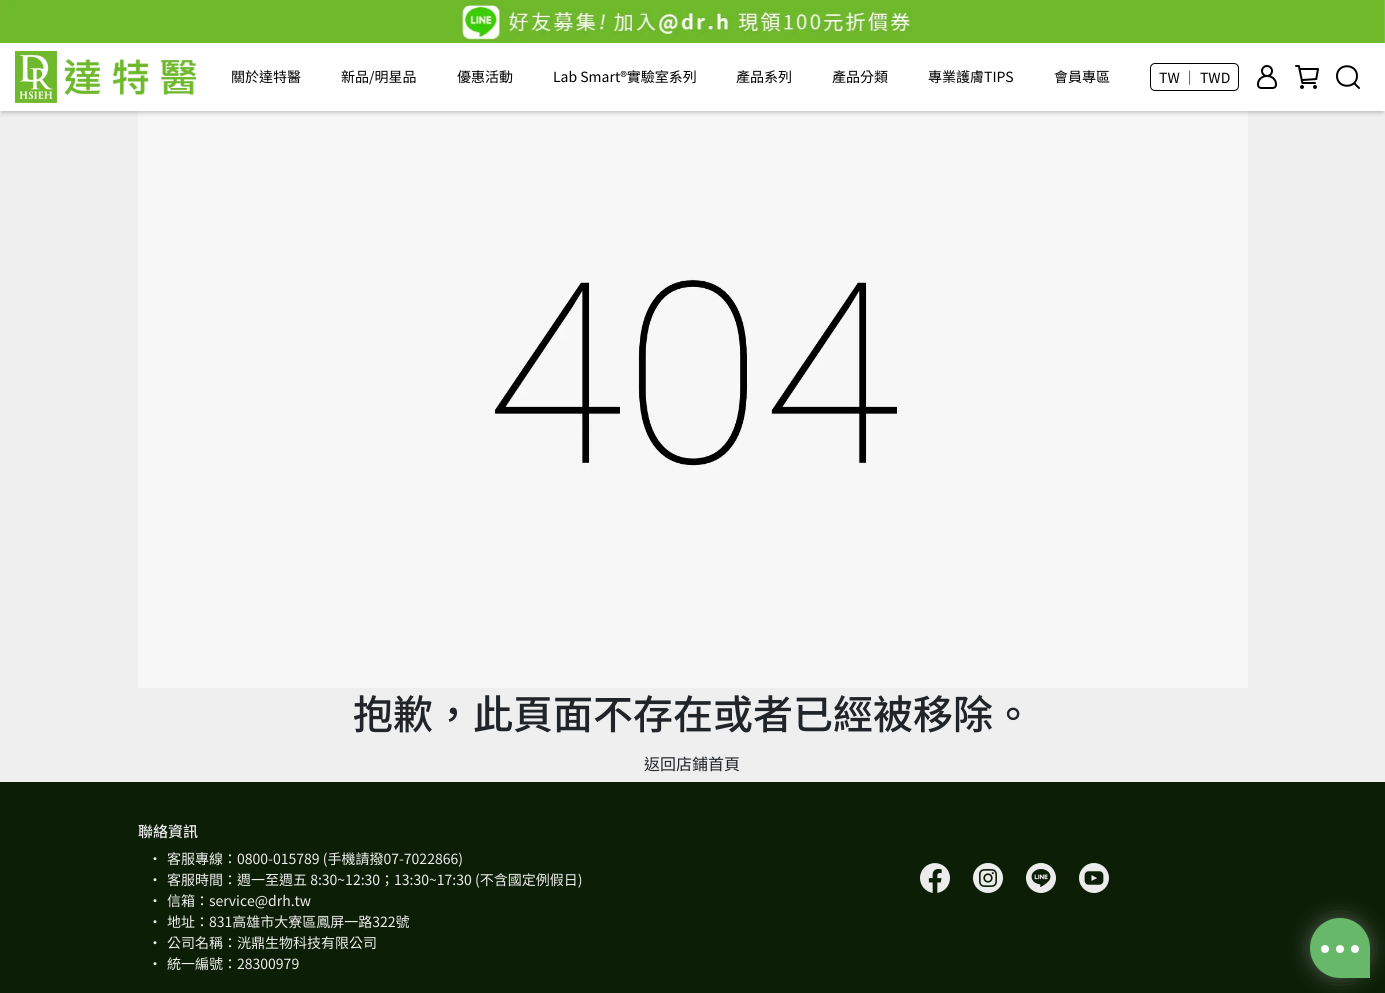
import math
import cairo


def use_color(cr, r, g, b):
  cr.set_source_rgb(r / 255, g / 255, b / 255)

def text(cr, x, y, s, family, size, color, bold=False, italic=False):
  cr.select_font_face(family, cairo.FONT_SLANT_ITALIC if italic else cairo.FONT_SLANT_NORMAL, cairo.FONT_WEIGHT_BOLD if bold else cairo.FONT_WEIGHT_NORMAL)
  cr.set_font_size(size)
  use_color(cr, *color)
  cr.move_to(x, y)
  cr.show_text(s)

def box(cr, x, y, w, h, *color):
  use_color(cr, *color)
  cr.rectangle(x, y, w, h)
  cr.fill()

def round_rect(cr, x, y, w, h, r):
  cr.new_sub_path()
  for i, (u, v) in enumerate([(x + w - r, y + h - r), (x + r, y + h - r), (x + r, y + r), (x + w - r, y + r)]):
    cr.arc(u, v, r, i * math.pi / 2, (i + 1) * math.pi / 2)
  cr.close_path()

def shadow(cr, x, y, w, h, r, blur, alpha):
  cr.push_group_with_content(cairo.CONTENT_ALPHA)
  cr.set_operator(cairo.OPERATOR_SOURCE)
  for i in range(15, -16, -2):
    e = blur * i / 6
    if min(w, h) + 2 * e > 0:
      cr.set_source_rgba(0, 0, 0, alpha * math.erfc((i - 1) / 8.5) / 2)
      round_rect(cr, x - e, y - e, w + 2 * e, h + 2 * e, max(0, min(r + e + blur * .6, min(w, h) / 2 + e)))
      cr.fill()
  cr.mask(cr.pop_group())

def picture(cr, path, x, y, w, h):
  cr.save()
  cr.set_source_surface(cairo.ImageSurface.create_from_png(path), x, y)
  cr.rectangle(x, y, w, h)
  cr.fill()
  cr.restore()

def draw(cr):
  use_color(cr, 239, 239, 239)
  cr.paint()
  picture(cr, "img_05.png", 138, 111, 1110, 577)
  use_color(cr, 0, 0, 0)
  shadow(cr, 2, 49, 1381, 64, 0, 2, 0.2)
  picture(cr, "img_01.png", 0, 0, 1385, 43)
  box(cr, 0, 43, 1385, 68, 255, 255, 255)
  picture(cr, "img_02.png", 15, 51, 182, 52)
  round_rect(cr, 1150.5, 63.5, 88, 27, 4.5)
  use_color(cr, 0, 0, 0)
  cr.set_line_width(1)
  cr.stroke()
  picture(cr, "img_03.png", 1257, 65, 20, 24)
  picture(cr, "img_04.png", 1295, 65, 24, 24)
  cr.new_path()
  cr.move_to(1357, 76)
  cr.curve_to(1357, 89, 1337, 89, 1337, 76)
  cr.curve_to(1337, 63, 1357, 63, 1357, 76)
  cr.close_path()
  cr.move_to(1355, 84)
  cr.line_to(1359, 88)
  cr.set_line_width(2)
  cr.set_line_cap(cairo.LINE_CAP_ROUND)
  cr.set_line_join(cairo.LINE_JOIN_ROUND)
  cr.stroke()
  box(cr, 0, 782, 1385, 211, 12, 31, 6)
  picture(cr, "img_06.png", 920, 863, 30, 30)
  picture(cr, "img_07.png", 973, 863, 30, 30)
  picture(cr, "img_08.png", 1026, 863, 30, 30)
  picture(cr, "img_09.png", 1079, 863, 30, 30)
  use_color(cr, 119, 119, 119)
  shadow(cr, 1310, 918, 60, 60, 30, 10, 0.64)
  use_color(cr, 103, 184, 104)
  cr.new_path()
  cr.move_to(1340, 918)
  cr.curve_to(1356.5, 918, 1370, 931.5, 1370, 948)
  cr.line_to(1370, 978)
  cr.line_to(1340, 978)
  cr.curve_to(1323.5, 978, 1310, 964.5, 1310, 948)
  cr.curve_to(1310, 931.5, 1323.5, 918, 1340, 918)
  cr.close_path()
  cr.fill()
  use_color(cr, 255, 255, 255)
  cr.arc(1325, 949, 4, 0, 2 * math.pi)
  cr.fill()
  cr.arc(1340, 949, 4, 0, 2 * math.pi)
  cr.fill()
  cr.arc(1355, 949, 4, 0, 2 * math.pi)
  cr.fill()
  text(cr, 231, 82, "關於達特醫", "Noto Sans TC", 14, (0, 0, 0))
  text(cr, 341, 82, "新品/明星品", "Noto Sans TC", 14, (0, 0, 0))
  text(cr, 457, 82, "優惠活動", "Noto Sans TC", 14, (0, 0, 0))
  text(cr, 553, 82, "Lab Smart®實驗室系列", "Noto Sans TC", 14, (0, 0, 0))
  text(cr, 736, 82, "產品系列", "Noto Sans TC", 14, (0, 0, 0))
  text(cr, 832, 82, "產品分類", "Noto Sans TC", 14, (0, 0, 0))
  text(cr, 928, 82, "專業護膚TIPS", "Noto Sans TC", 14, (0, 0, 0))
  text(cr, 1054, 82, "會員專區", "Noto Sans TC", 14, (0, 0, 0))
  text(cr, 1159, 83, "TW ｜ TWD", "Noto Sans TC", 14, (0, 0, 0))
  text(cr, 353, 729, "抱歉，此頁面不存在或者已經被移除。", "Noto Sans TC Medium", 40, (33, 37, 41))
  text(cr, 644, 770, "返回店鋪首頁", "Noto Sans TC", 16, (33, 37, 41))
  text(cr, 138, 837, "聯絡資訊", "Noto Sans TC Medium", 15, (236, 236, 236))
  text(cr, 148, 864, "•", "Noto Sans TC", 14, (236, 236, 236))
  text(cr, 167, 864, "客服專線：0800-015789 (手機請撥07-7022866)", "Noto Sans TC", 14, (236, 236, 236))
  text(cr, 148, 885, "•", "Noto Sans TC", 14, (236, 236, 236))
  text(cr, 167, 885, "客服時間：週一至週五 8:30~12:30；13:30~17:30 (不含國定例假日)", "Noto Sans TC", 14, (236, 236, 236))
  text(cr, 148, 906, "•", "Noto Sans TC", 14, (236, 236, 236))
  text(cr, 167, 906, "信箱：service@drh.tw", "Noto Sans TC", 14, (236, 236, 236))
  text(cr, 148, 927, "•", "Noto Sans TC", 14, (236, 236, 236))
  text(cr, 167, 927, "地址：831高雄市大寮區鳳屏一路322號", "Noto Sans TC", 14, (236, 236, 236))
  text(cr, 148, 948, "•", "Noto Sans TC", 14, (236, 236, 236))
  text(cr, 167, 948, "公司名稱：洸鼎生物科技有限公司", "Noto Sans TC", 14, (236, 236, 236))
  text(cr, 148, 969, "•", "Noto Sans TC", 14, (236, 236, 236))
  text(cr, 167, 969, "統一編號：28300979", "Noto Sans TC", 14, (236, 236, 236))


surface = cairo.ImageSurface(cairo.FORMAT_RGB24, 1385, 993)
cr = cairo.Context(surface)
options = cairo.FontOptions()
options.set_hint_metrics(cairo.HINT_METRICS_OFF)
options.set_hint_style(cairo.HINT_STYLE_NONE)
cr.set_font_options(options)
cr.set_miter_limit(4)
draw(cr)
surface.write_to_png("out.png")
